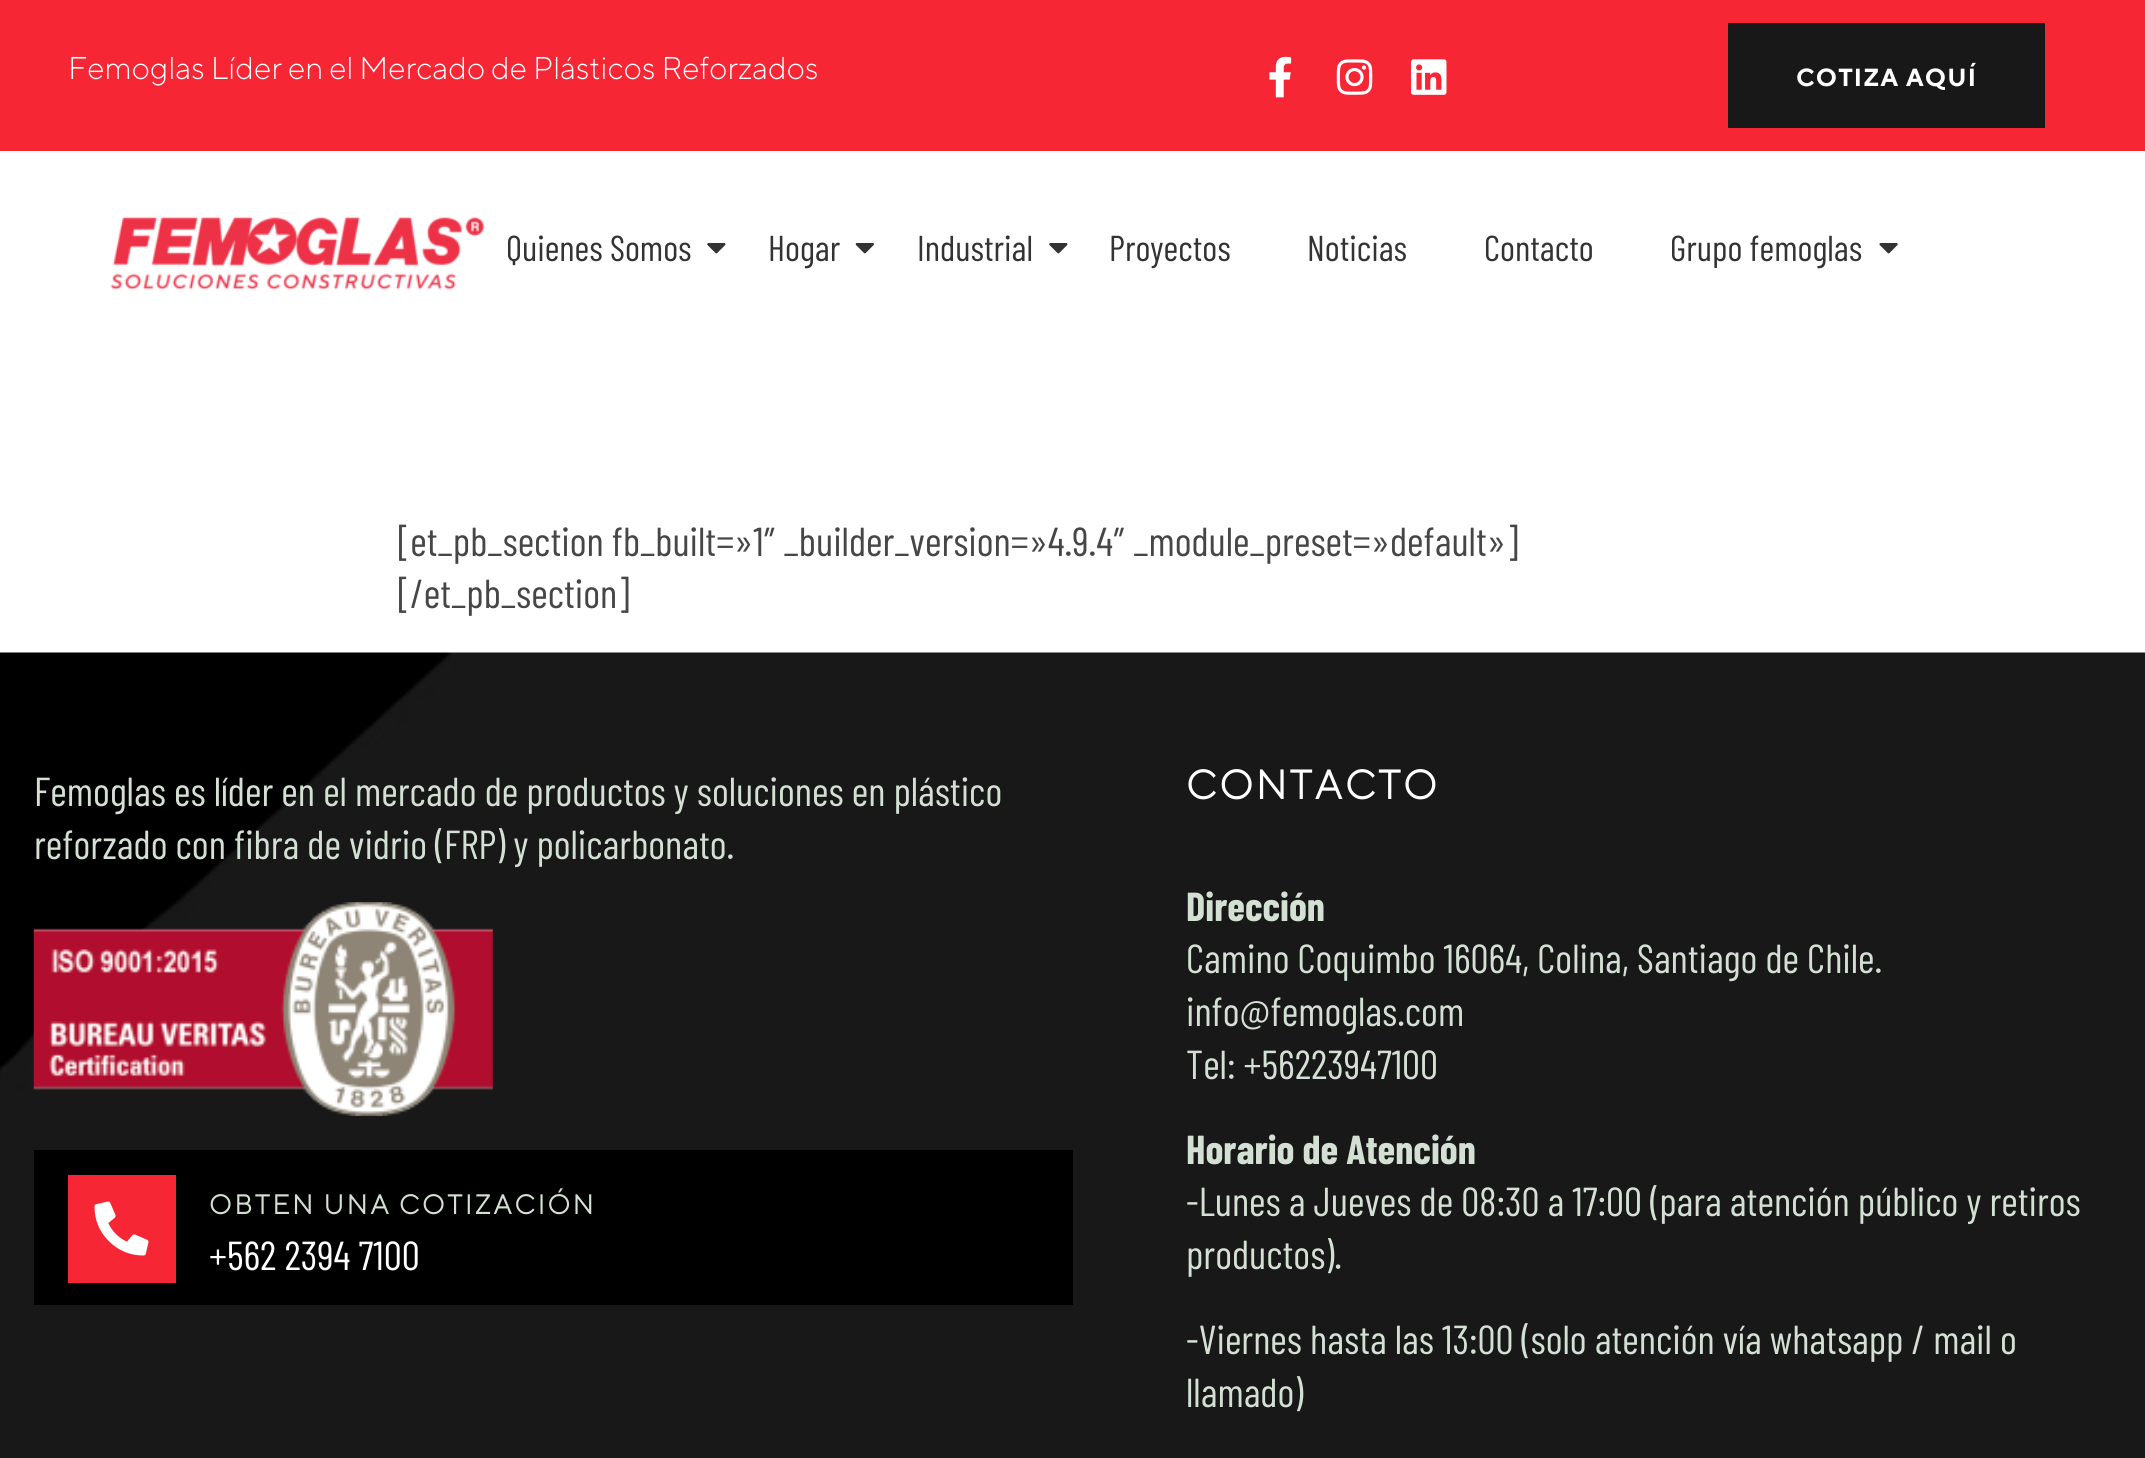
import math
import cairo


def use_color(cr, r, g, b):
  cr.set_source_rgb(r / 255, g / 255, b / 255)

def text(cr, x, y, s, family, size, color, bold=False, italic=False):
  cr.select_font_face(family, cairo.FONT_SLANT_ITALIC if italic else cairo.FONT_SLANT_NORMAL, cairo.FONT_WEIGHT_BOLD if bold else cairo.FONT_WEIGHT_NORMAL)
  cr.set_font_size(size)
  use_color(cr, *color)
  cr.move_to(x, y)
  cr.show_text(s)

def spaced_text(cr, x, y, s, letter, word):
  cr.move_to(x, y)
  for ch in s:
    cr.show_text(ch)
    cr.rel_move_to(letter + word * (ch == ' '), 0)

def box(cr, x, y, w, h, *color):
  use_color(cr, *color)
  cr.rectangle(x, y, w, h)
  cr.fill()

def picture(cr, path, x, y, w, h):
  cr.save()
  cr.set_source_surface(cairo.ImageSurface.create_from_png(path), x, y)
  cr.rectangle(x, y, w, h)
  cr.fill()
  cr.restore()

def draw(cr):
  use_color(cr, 255, 255, 255)
  cr.paint()
  box(cr, 0, 0, 2145, 151, 247, 38, 53)
  picture(cr, "img_01.png", 1269, 56, 23, 42)
  picture(cr, "img_02.png", 1336, 59, 37, 36)
  picture(cr, "img_03.png", 1411, 59, 36, 36)
  box(cr, 1728, 23, 317, 105, 24, 24, 24)
  picture(cr, "img_04.png", 110, 216, 375, 74)
  picture(cr, "img_05.png", 707, 243, 19, 11)
  picture(cr, "img_06.png", 855, 243, 19, 11)
  picture(cr, "img_05.png", 1049, 243, 19, 11)
  picture(cr, "img_07.png", 1879, 243, 19, 11)
  picture(cr, "img_08.png", 0, 652, 2145, 806)
  picture(cr, "img_09.png", 33, 902, 460, 214)
  box(cr, 34, 1150, 1039, 155, 0, 0, 0)
  box(cr, 68, 1175, 108, 108, 247, 38, 53)
  picture(cr, "img_10.png", 94, 1201, 55, 55)
  text(cr, 68, 79, "Femoglas Líder en el Mercado de Plásticos Reforzados", "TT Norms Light", 31.5, (255, 255, 255))
  cr.select_font_face("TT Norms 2", cairo.FONT_SLANT_NORMAL, cairo.FONT_WEIGHT_BOLD)
  cr.set_font_size(24.75)
  spaced_text(cr, 1796, 86, "COTIZA AQUÍ", 1.1, 0)
  text(cr, 506, 261, "Quienes Somos", "Barlow Condensed", 36, (51, 51, 51))
  text(cr, 768, 261, "Hogar", "Barlow Condensed", 36, (51, 51, 51))
  text(cr, 917, 261, "Industrial", "Barlow Condensed", 36, (51, 51, 51))
  text(cr, 1109, 261, "Proyectos", "Barlow Condensed", 36, (51, 51, 51))
  text(cr, 1307, 261, "Noticias", "Barlow Condensed", 36, (51, 51, 51))
  text(cr, 1484, 261, "Contacto", "Barlow Condensed", 36, (51, 51, 51))
  text(cr, 1670, 261, "Grupo femoglas", "Barlow Condensed", 36, (51, 51, 51))
  text(cr, 398, 556, "[et_pb_section fb_built=»1″ _builder_version=»4.9.4″ _module_preset=»default»]", "Barlow Condensed", 40.5, (70, 70, 70))
  text(cr, 398, 608, "[/et_pb_section]", "Barlow Condensed", 40.5, (70, 70, 70))
  text(cr, 34, 806, "Femoglas es líder en el mercado de productos y soluciones en plástico", "Barlow Condensed", 40.5, (211, 224, 211))
  text(cr, 34, 859, "reforzado con fibra de vidrio (FRP) y policarbonato.", "Barlow Condensed", 40.5, (211, 224, 211))
  cr.select_font_face("TT Norms", cairo.FONT_SLANT_NORMAL, cairo.FONT_WEIGHT_BOLD)
  cr.set_font_size(27)
  spaced_text(cr, 209, 1214, "OBTEN UNA COTIZACIÓN", 2.75, 0)
  text(cr, 209, 1270, "+562 2394 7100", "Barlow Condensed", 40.5, (255, 255, 255))
  cr.select_font_face("TT Norms", cairo.FONT_SLANT_NORMAL, cairo.FONT_WEIGHT_BOLD)
  spaced_text(cr, 1186, 799, "CONTACTO", 2.75, 0)
  text(cr, 1186, 921, "Dirección", "Barlow Condensed", 40.5, (211, 224, 211), bold=True)
  text(cr, 1186, 973, "Camino Coquimbo 16064, Colina, Santiago de Chile.", "Barlow Condensed", 40.5, (211, 224, 211))
  text(cr, 1186, 1026, "info@femoglas.com", "Barlow Condensed", 40.5, (211, 224, 211))
  text(cr, 1186, 1079, "Tel: +56223947100", "Barlow Condensed", 40.5, (211, 224, 211))
  text(cr, 1186, 1164, "Horario de Atención", "Barlow Condensed", 40.5, (211, 224, 211), bold=True)
  text(cr, 1186, 1216, "-Lunes a Jueves de 08:30 a 17:00 (para atención público y retiros", "Barlow Condensed", 40.5, (211, 224, 211))
  text(cr, 1186, 1269, "productos).", "Barlow Condensed", 40.5, (211, 224, 211))
  text(cr, 1186, 1354, "-Viernes hasta las 13:00 (solo atención vía whatsapp / mail o", "Barlow Condensed", 40.5, (211, 224, 211))
  text(cr, 1186, 1407, "llamado)", "Barlow Condensed", 40.5, (211, 224, 211))


surface = cairo.ImageSurface(cairo.FORMAT_RGB24, 2145, 1458)
cr = cairo.Context(surface)
options = cairo.FontOptions()
options.set_hint_metrics(cairo.HINT_METRICS_OFF)
options.set_hint_style(cairo.HINT_STYLE_NONE)
cr.set_font_options(options)
cr.set_miter_limit(4)
draw(cr)
surface.write_to_png("out.png")
